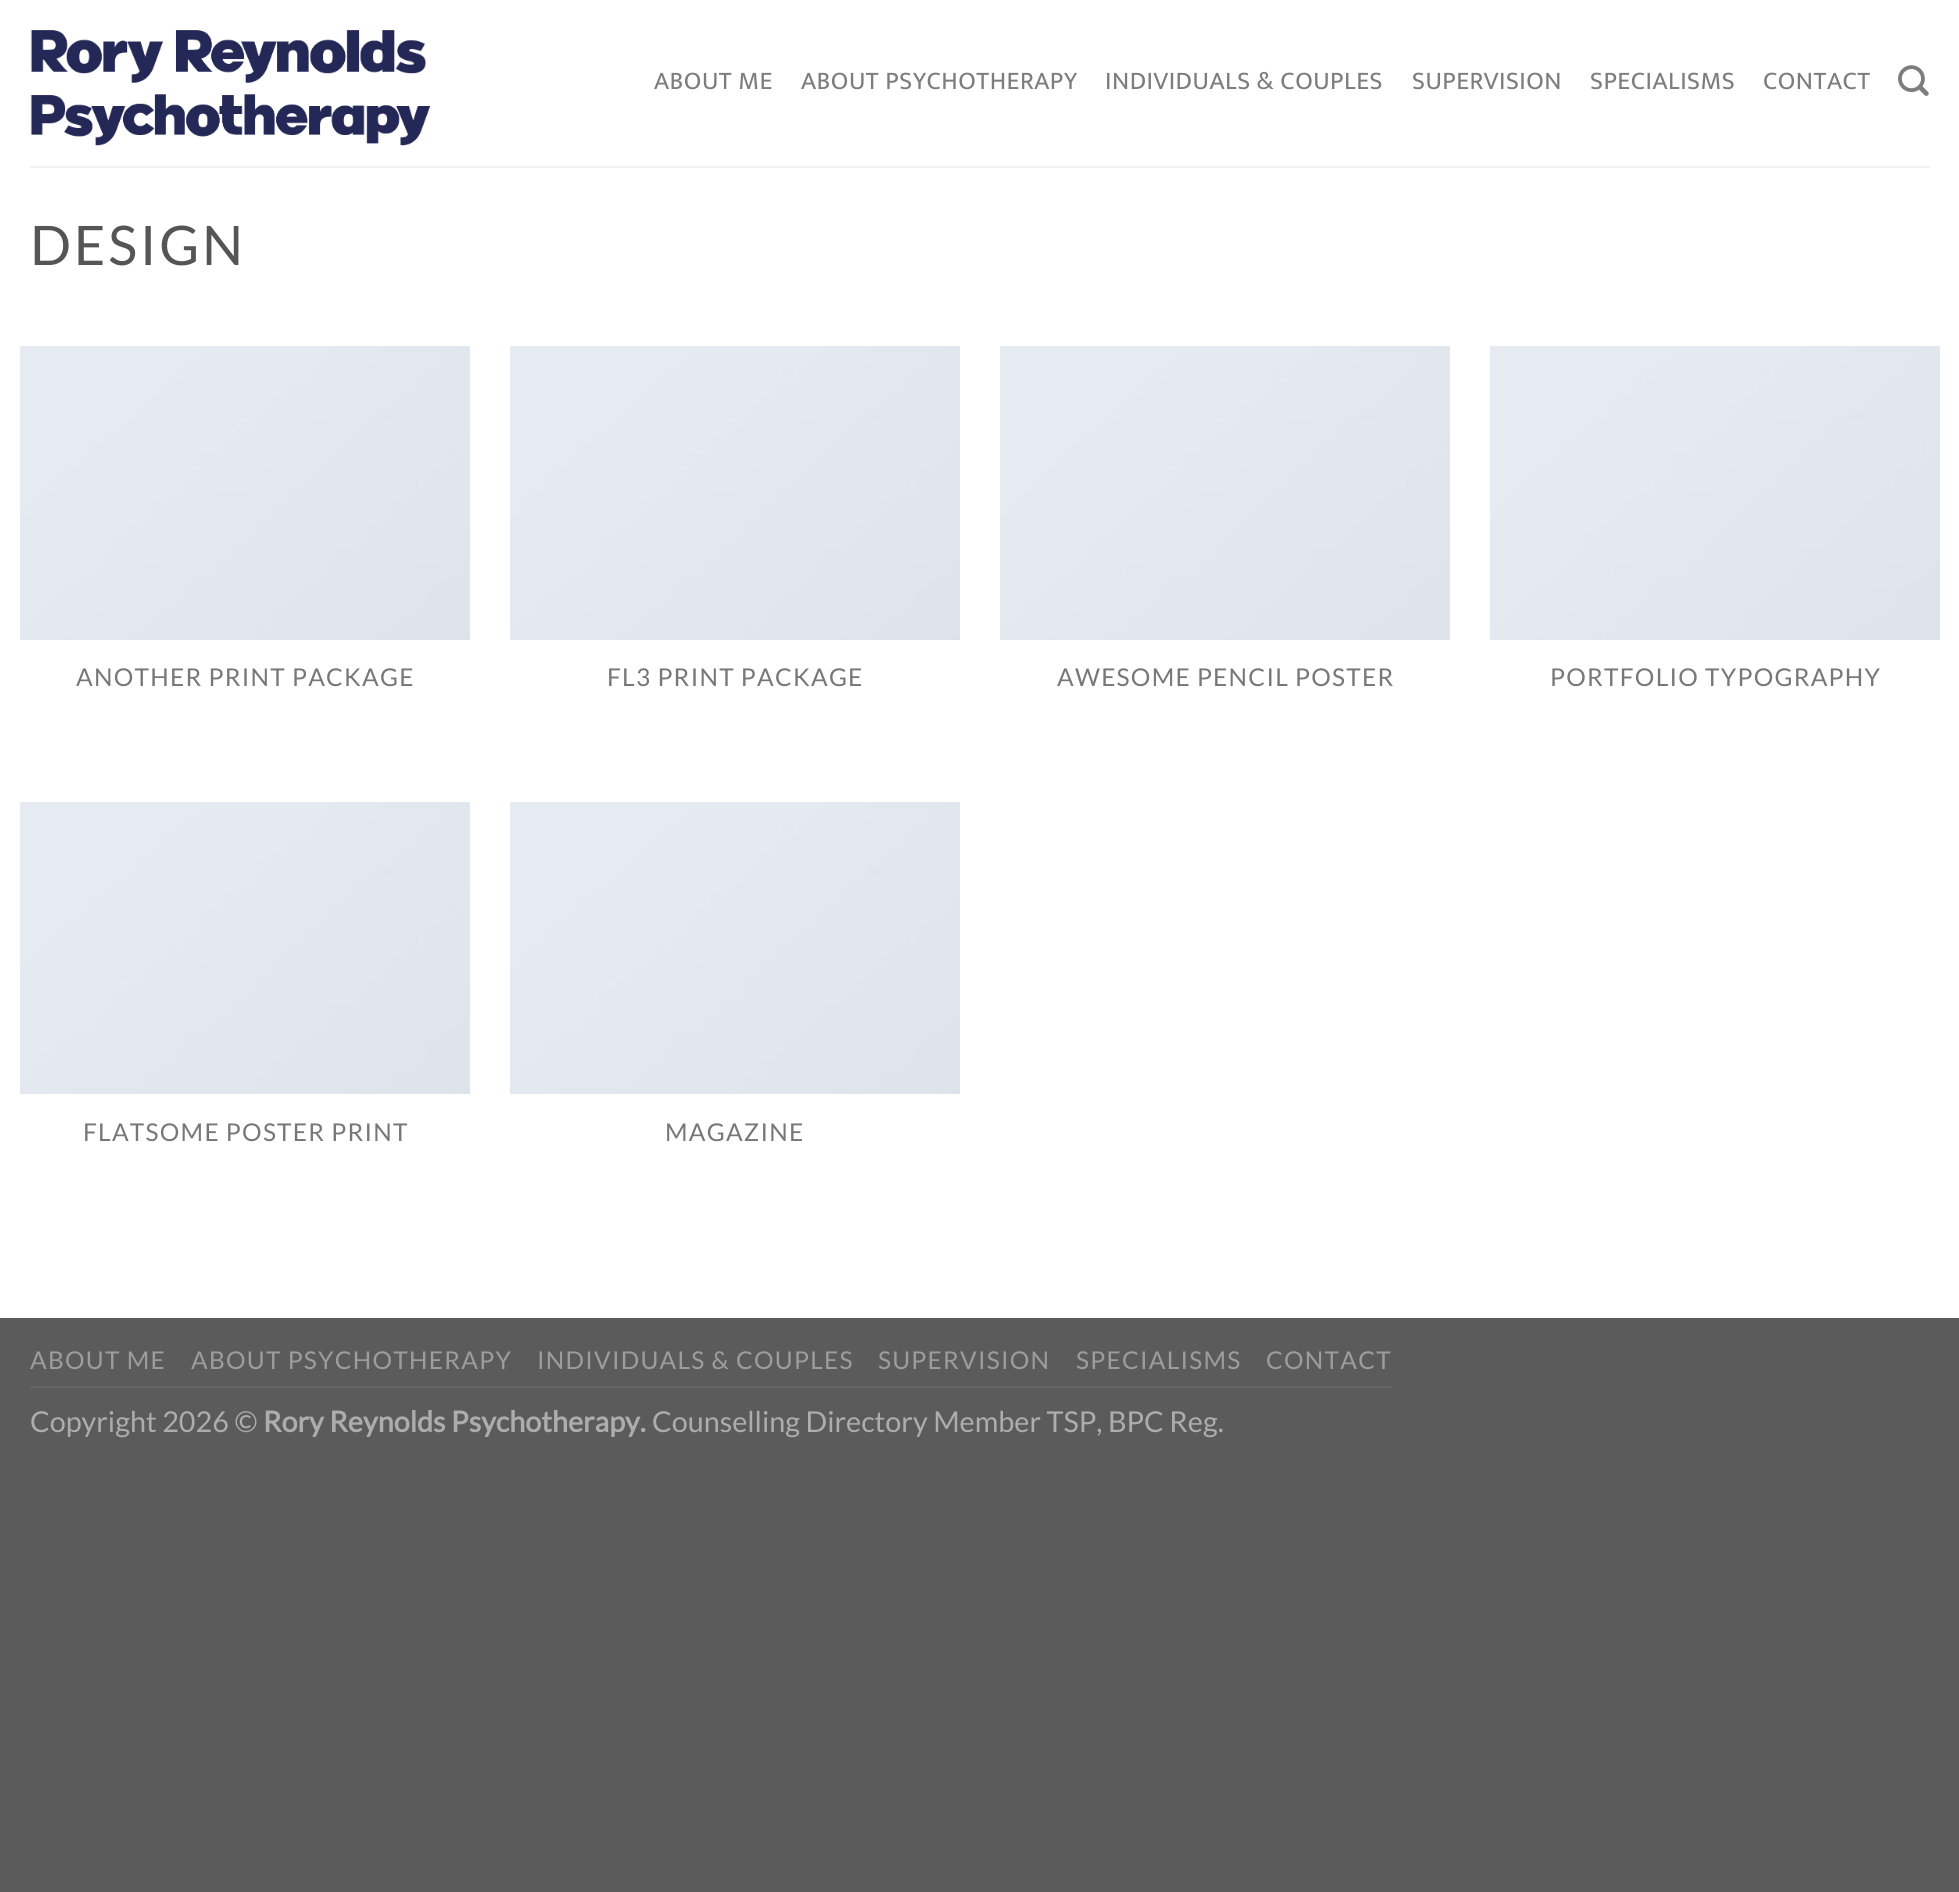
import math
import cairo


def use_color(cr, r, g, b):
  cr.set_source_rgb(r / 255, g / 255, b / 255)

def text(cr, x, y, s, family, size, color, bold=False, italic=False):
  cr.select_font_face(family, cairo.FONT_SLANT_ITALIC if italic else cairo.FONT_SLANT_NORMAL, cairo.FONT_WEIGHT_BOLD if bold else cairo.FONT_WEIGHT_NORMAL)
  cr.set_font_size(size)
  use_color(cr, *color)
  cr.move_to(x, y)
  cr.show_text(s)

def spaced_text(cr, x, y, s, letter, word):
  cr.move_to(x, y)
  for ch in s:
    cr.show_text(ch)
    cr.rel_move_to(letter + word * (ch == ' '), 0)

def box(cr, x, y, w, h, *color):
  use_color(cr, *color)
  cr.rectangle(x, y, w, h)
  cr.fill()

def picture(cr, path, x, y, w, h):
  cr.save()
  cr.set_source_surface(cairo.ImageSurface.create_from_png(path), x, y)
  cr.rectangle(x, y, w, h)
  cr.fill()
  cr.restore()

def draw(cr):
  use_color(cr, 91, 91, 91)
  cr.paint()
  box(cr, 0, 0, 1959, 1318, 255, 255, 255)
  picture(cr, "img_01.png", 30, 30, 400, 116)
  picture(cr, "img_02.png", 1898, 65, 31, 31)
  box(cr, 30, 166, 1900, 2, 241, 241, 241)
  picture(cr, "img_03.png", 20, 346, 450, 294)
  picture(cr, "img_03.png", 510, 346, 450, 294)
  picture(cr, "img_03.png", 1000, 346, 450, 294)
  picture(cr, "img_04.png", 1490, 346, 450, 294)
  picture(cr, "img_05.png", 20, 802, 450, 292)
  picture(cr, "img_05.png", 510, 802, 450, 292)
  box(cr, 30, 1386, 1362, 2, 101, 101, 101)
  cr.select_font_face("Mukta")
  cr.set_font_size(25.6)
  use_color(cr, 125, 125, 125)
  spaced_text(cr, 654, 89, "ABOUT ME", 0.5, 0)
  spaced_text(cr, 801, 89, "ABOUT PSYCHOTHERAPY", 0.5, 0)
  spaced_text(cr, 1105, 89, "INDIVIDUALS & COUPLES", 0.5, 0)
  spaced_text(cr, 1412, 89, "SUPERVISION", 0.5, 0)
  spaced_text(cr, 1590, 89, "SPECIALISMS", 0.5, 0)
  spaced_text(cr, 1763, 89, "CONTACT", 0.5, 0)
  cr.select_font_face("Lato")
  cr.set_font_size(54.5)
  use_color(cr, 85, 85, 85)
  spaced_text(cr, 30, 265, "DESIGN", 2.75, 0)
  cr.set_font_size(24.5)
  use_color(cr, 119, 119, 119)
  spaced_text(cr, 76, 686, "ANOTHER PRINT PACKAGE", 1.25, 0)
  spaced_text(cr, 607, 686, "FL3 PRINT PACKAGE", 1.25, 0)
  spaced_text(cr, 1057, 686, "AWESOME PENCIL POSTER", 1.25, 0)
  spaced_text(cr, 1550, 686, "PORTFOLIO TYPOGRAPHY", 1.25, 0)
  spaced_text(cr, 83, 1141, "FLATSOME POSTER PRINT", 1.25, 0)
  spaced_text(cr, 665, 1141, "MAGAZINE", 1.25, 0)
  use_color(cr, 157, 157, 157)
  spaced_text(cr, 30, 1369, "ABOUT ME", 1.25, 0)
  spaced_text(cr, 191, 1369, "ABOUT PSYCHOTHERAPY", 1.25, 0)
  spaced_text(cr, 537, 1369, "INDIVIDUALS & COUPLES", 1.25, 0)
  spaced_text(cr, 878, 1369, "SUPERVISION", 1.25, 0)
  spaced_text(cr, 1076, 1369, "SPECIALISMS", 1.25, 0)
  spaced_text(cr, 1266, 1369, "CONTACT", 1.25, 0)
  text(cr, 30, 1432, "Copyright 2026 ©", "Lato", 28.75, (173, 173, 173))
  text(cr, 263, 1432, "Rory Reynolds Psychotherapy.", "Lato", 28.75, (173, 173, 173), bold=True)
  text(cr, 652, 1432, "Counselling Directory Member TSP, BPC Reg.", "Lato", 28.75, (173, 173, 173))


surface = cairo.ImageSurface(cairo.FORMAT_RGB24, 1959, 1892)
cr = cairo.Context(surface)
options = cairo.FontOptions()
options.set_hint_metrics(cairo.HINT_METRICS_OFF)
options.set_hint_style(cairo.HINT_STYLE_NONE)
cr.set_font_options(options)
cr.set_miter_limit(4)
draw(cr)
surface.write_to_png("out.png")
